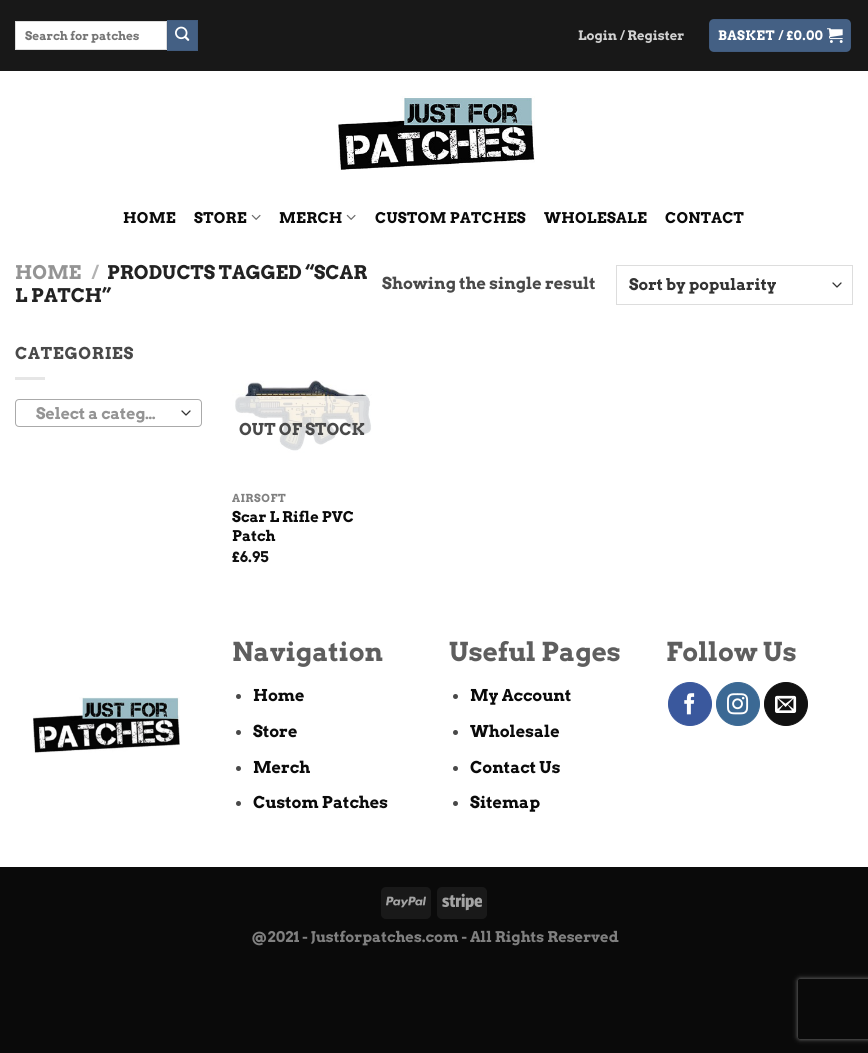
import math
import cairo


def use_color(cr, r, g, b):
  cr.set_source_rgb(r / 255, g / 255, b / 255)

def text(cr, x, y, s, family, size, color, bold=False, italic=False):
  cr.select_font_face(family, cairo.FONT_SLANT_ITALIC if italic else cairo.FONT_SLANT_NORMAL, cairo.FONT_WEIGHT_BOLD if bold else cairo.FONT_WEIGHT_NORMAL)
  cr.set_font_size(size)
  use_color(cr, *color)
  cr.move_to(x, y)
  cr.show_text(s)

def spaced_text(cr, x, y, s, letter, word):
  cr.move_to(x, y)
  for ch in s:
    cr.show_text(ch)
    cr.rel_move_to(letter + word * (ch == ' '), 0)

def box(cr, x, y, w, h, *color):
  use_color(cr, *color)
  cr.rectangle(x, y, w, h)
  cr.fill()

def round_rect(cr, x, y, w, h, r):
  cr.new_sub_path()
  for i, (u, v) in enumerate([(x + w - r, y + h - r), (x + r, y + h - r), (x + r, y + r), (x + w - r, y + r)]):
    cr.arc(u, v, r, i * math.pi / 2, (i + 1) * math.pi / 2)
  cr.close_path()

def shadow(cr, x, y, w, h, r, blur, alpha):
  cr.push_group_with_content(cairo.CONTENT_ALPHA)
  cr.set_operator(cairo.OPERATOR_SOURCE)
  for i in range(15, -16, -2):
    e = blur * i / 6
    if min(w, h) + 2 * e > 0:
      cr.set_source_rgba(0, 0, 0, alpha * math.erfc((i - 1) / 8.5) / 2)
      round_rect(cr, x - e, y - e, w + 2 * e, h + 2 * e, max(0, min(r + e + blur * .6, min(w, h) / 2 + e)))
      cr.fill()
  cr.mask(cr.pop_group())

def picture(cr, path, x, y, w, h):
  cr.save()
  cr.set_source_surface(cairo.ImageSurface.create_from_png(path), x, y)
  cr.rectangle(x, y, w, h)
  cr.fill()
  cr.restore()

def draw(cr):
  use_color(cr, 10, 10, 10)
  cr.paint()
  box(cr, 0, 71, 868, 796, 255, 255, 255)
  box(cr, 0, 0, 868, 71, 24, 24, 24)
  use_color(cr, 255, 255, 255)
  cr.rectangle(15.5, 21.5, 151, 28)
  cr.fill_preserve()
  use_color(cr, 221, 221, 221)
  cr.set_line_width(1)
  cr.stroke()
  use_color(cr, 68, 96, 132)
  cr.rectangle(167.5, 20.5, 30, 30)
  cr.fill_preserve()
  use_color(cr, 65, 91, 125)
  cr.stroke()
  picture(cr, "img_01.png", 175, 26, 15, 15)
  use_color(cr, 68, 96, 132)
  round_rect(cr, 709, 19, 142, 33, 5)
  cr.fill()
  cr.rectangle(709.5, 19.5, 141, 32)
  cr.set_source_rgba(0, 0, 0, 0.05)
  cr.stroke()
  picture(cr, "img_02.png", 827, 28, 16, 15)
  picture(cr, "img_03.png", 338, 96, 197, 74)
  picture(cr, "img_04.png", 251, 214, 10, 6)
  picture(cr, "img_04.png", 346, 214, 10, 6)
  cr.new_path()
  cr.move_to(833, 283)
  cr.line_to(837, 287)
  cr.line_to(841, 283)
  use_color(cr, 51, 51, 51)
  cr.set_line_width(1.3)
  cr.set_line_cap(cairo.LINE_CAP_ROUND)
  cr.set_line_join(cairo.LINE_JOIN_ROUND)
  cr.stroke()
  cr.rectangle(616.5, 265.5, 236, 39)
  use_color(cr, 221, 221, 221)
  cr.set_line_width(1)
  cr.set_line_cap(cairo.LINE_CAP_BUTT)
  cr.set_line_join(cairo.LINE_JOIN_MITER)
  cr.stroke()
  box(cr, 15, 377, 30, 3, 230, 230, 230)
  cr.new_path()
  cr.move_to(182, 411)
  cr.line_to(186, 415)
  cr.line_to(190, 411)
  use_color(cr, 51, 51, 51)
  cr.set_line_width(1.3)
  cr.set_line_cap(cairo.LINE_CAP_ROUND)
  cr.set_line_join(cairo.LINE_JOIN_ROUND)
  cr.stroke()
  round_rect(cr, 15.5, 399.5, 186, 27, 3.5)
  use_color(cr, 170, 170, 170)
  cr.set_line_width(1)
  cr.set_line_cap(cairo.LINE_CAP_BUTT)
  cr.set_line_join(cairo.LINE_JOIN_MITER)
  cr.stroke()
  picture(cr, "img_05.png", 232, 380, 140, 73)
  cr.set_source_rgba(1, 1, 1, 0.81)
  cr.rectangle(232, 396, 140, 57)
  cr.fill()
  use_color(cr, 73, 73, 73)
  cr.arc(238.5, 696.5, 2.5, 0, 2 * math.pi)
  cr.fill()
  cr.arc(238.5, 732.5, 2.5, 0, 2 * math.pi)
  cr.fill()
  cr.arc(238.5, 768.5, 2.5, 0, 2 * math.pi)
  cr.fill()
  cr.arc(238.5, 803.5, 2.5, 0, 2 * math.pi)
  cr.fill()
  cr.arc(455.5, 696.5, 2.5, 0, 2 * math.pi)
  cr.fill()
  cr.arc(455.5, 732.5, 2.5, 0, 2 * math.pi)
  cr.fill()
  cr.arc(455.5, 768.5, 2.5, 0, 2 * math.pi)
  cr.fill()
  cr.arc(455.5, 803.5, 2.5, 0, 2 * math.pi)
  cr.fill()
  use_color(cr, 58, 88, 157)
  cr.arc(690, 704, 21.5, 0, 2 * math.pi)
  cr.fill_preserve()
  cr.stroke()
  picture(cr, "img_06.png", 684, 693, 11, 22)
  use_color(cr, 59, 105, 148)
  cr.arc(738, 704, 21.5, 0, 2 * math.pi)
  cr.fill_preserve()
  cr.stroke()
  picture(cr, "img_07.png", 727, 693, 22, 22)
  use_color(cr, 17, 17, 17)
  cr.arc(786, 704, 21.5, 0, 2 * math.pi)
  cr.fill_preserve()
  cr.stroke()
  picture(cr, "img_08.png", 775, 695, 22, 18)
  picture(cr, "img_09.png", 33, 697, 147, 56)
  use_color(cr, 25, 25, 25)
  round_rect(cr, 381, 887, 50, 32, 5)
  cr.fill()
  picture(cr, "img_10.png", 386, 896, 40, 12)
  round_rect(cr, 437, 887, 50, 32, 5)
  cr.fill()
  picture(cr, "img_11.png", 442, 893, 40, 18)
  cr.save()
  cr.set_fill_rule(cairo.FILL_RULE_EVEN_ODD)
  cr.new_path()
  cr.move_to(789, 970)
  cr.line_to(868, 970)
  cr.line_to(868, 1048)
  cr.line_to(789, 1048)
  cr.close_path()
  cr.move_to(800, 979)
  cr.line_to(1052, 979)
  cr.curve_to(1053, 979, 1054, 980, 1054, 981)
  cr.line_to(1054, 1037)
  cr.curve_to(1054, 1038, 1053, 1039, 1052, 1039)
  cr.line_to(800, 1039)
  cr.curve_to(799, 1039, 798, 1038, 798, 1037)
  cr.line_to(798, 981)
  cr.curve_to(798, 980, 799, 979, 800, 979)
  cr.close_path()
  cr.clip()
  use_color(cr, 128, 128, 128)
  shadow(cr, 798, 979, 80, 60, 2, 2.5, 1)
  cr.restore()
  text(cr, 25, 40, "Search for patches", "Arvo", 11.9, (117, 117, 117), bold=True)
  text(cr, 578, 40, "Login / Register", "Arvo", 13, (209, 209, 209), bold=True)
  use_color(cr, 255, 255, 255)
  spaced_text(cr, 718, 40, "BASKET / £0.00", 0.4, 0)
  cr.set_font_size(14.7)
  use_color(cr, 10, 10, 10)
  spaced_text(cr, 123, 223, "HOME", 0.25, 0)
  spaced_text(cr, 194, 223, "STORE", 0.25, 0)
  spaced_text(cr, 279, 223, "MERCH", 0.25, 0)
  spaced_text(cr, 375, 223, "CUSTOM PATCHES", 0.25, 0)
  spaced_text(cr, 544, 223, "WHOLESALE", 0.25, 0)
  spaced_text(cr, 665, 223, "CONTACT", 0.25, 0)
  text(cr, 15, 279, "HOME", "Arvo", 18.75, (148, 148, 148), bold=True)
  text(cr, 91, 279, "/", "Arvo", 18.75, (178, 178, 178), bold=True)
  text(cr, 107, 279, "PRODUCTS TAGGED “SCAR", "Arvo", 18.75, (34, 34, 34), bold=True)
  text(cr, 15, 302, "L PATCH”", "Arvo", 18.75, (34, 34, 34), bold=True)
  text(cr, 382, 289, "Showing the single result", "Arvo", 16.25, (73, 73, 73), bold=True)
  text(cr, 629, 290, "Sort by popularity", "Arvo", 15.75, (51, 51, 51), bold=True)
  cr.set_font_size(16.25)
  use_color(cr, 73, 73, 73)
  spaced_text(cr, 15, 359, "CATEGORIES", 0.75, 0)
  text(cr, 36, 419, "Select a categ…", "Arvo", 15.75, (148, 148, 148), bold=True)
  text(cr, 239, 435, "OUT OF STOCK", "Arvo", 16.25, (73, 73, 73), bold=True)
  cr.set_font_size(11)
  use_color(cr, 128, 128, 128)
  spaced_text(cr, 232, 502, "AIRSOFT", 0.5, 0)
  text(cr, 232, 522, "Scar L Rifle PVC", "Arvo", 14.7, (10, 10, 10), bold=True)
  text(cr, 232, 541, "Patch", "Arvo", 14.7, (10, 10, 10), bold=True)
  text(cr, 232, 562, "£6.95", "Arvo", 14.7, (17, 17, 17), bold=True)
  text(cr, 232, 661, "Navigation", "Arvo", 26, (94, 94, 94), bold=True)
  text(cr, 253, 701, "Home", "Arvo", 16.25, (10, 10, 10), bold=True)
  text(cr, 253, 737, "Store", "Arvo", 16.25, (10, 10, 10), bold=True)
  text(cr, 253, 773, "Merch", "Arvo", 16.25, (10, 10, 10), bold=True)
  text(cr, 253, 808, "Custom Patches", "Arvo", 16.25, (10, 10, 10), bold=True)
  text(cr, 449, 661, "Useful Pages", "Arvo", 26, (94, 94, 94), bold=True)
  text(cr, 470, 701, "My Account", "Arvo", 16.25, (10, 10, 10), bold=True)
  text(cr, 470, 737, "Wholesale", "Arvo", 16.25, (10, 10, 10), bold=True)
  text(cr, 470, 773, "Contact Us", "Arvo", 16.25, (10, 10, 10), bold=True)
  text(cr, 470, 808, "Sitemap", "Arvo", 16.25, (10, 10, 10), bold=True)
  text(cr, 666, 661, "Follow Us", "Arvo", 26, (94, 94, 94), bold=True)
  text(cr, 251, 942, "@2021 - Justforpatches.com - All Rights Reserved", "Arvo", 14.7, (128, 128, 128), bold=True)


surface = cairo.ImageSurface(cairo.FORMAT_RGB24, 868, 1053)
cr = cairo.Context(surface)
options = cairo.FontOptions()
options.set_hint_metrics(cairo.HINT_METRICS_OFF)
options.set_hint_style(cairo.HINT_STYLE_NONE)
cr.set_font_options(options)
cr.set_miter_limit(4)
draw(cr)
surface.write_to_png("out.png")
